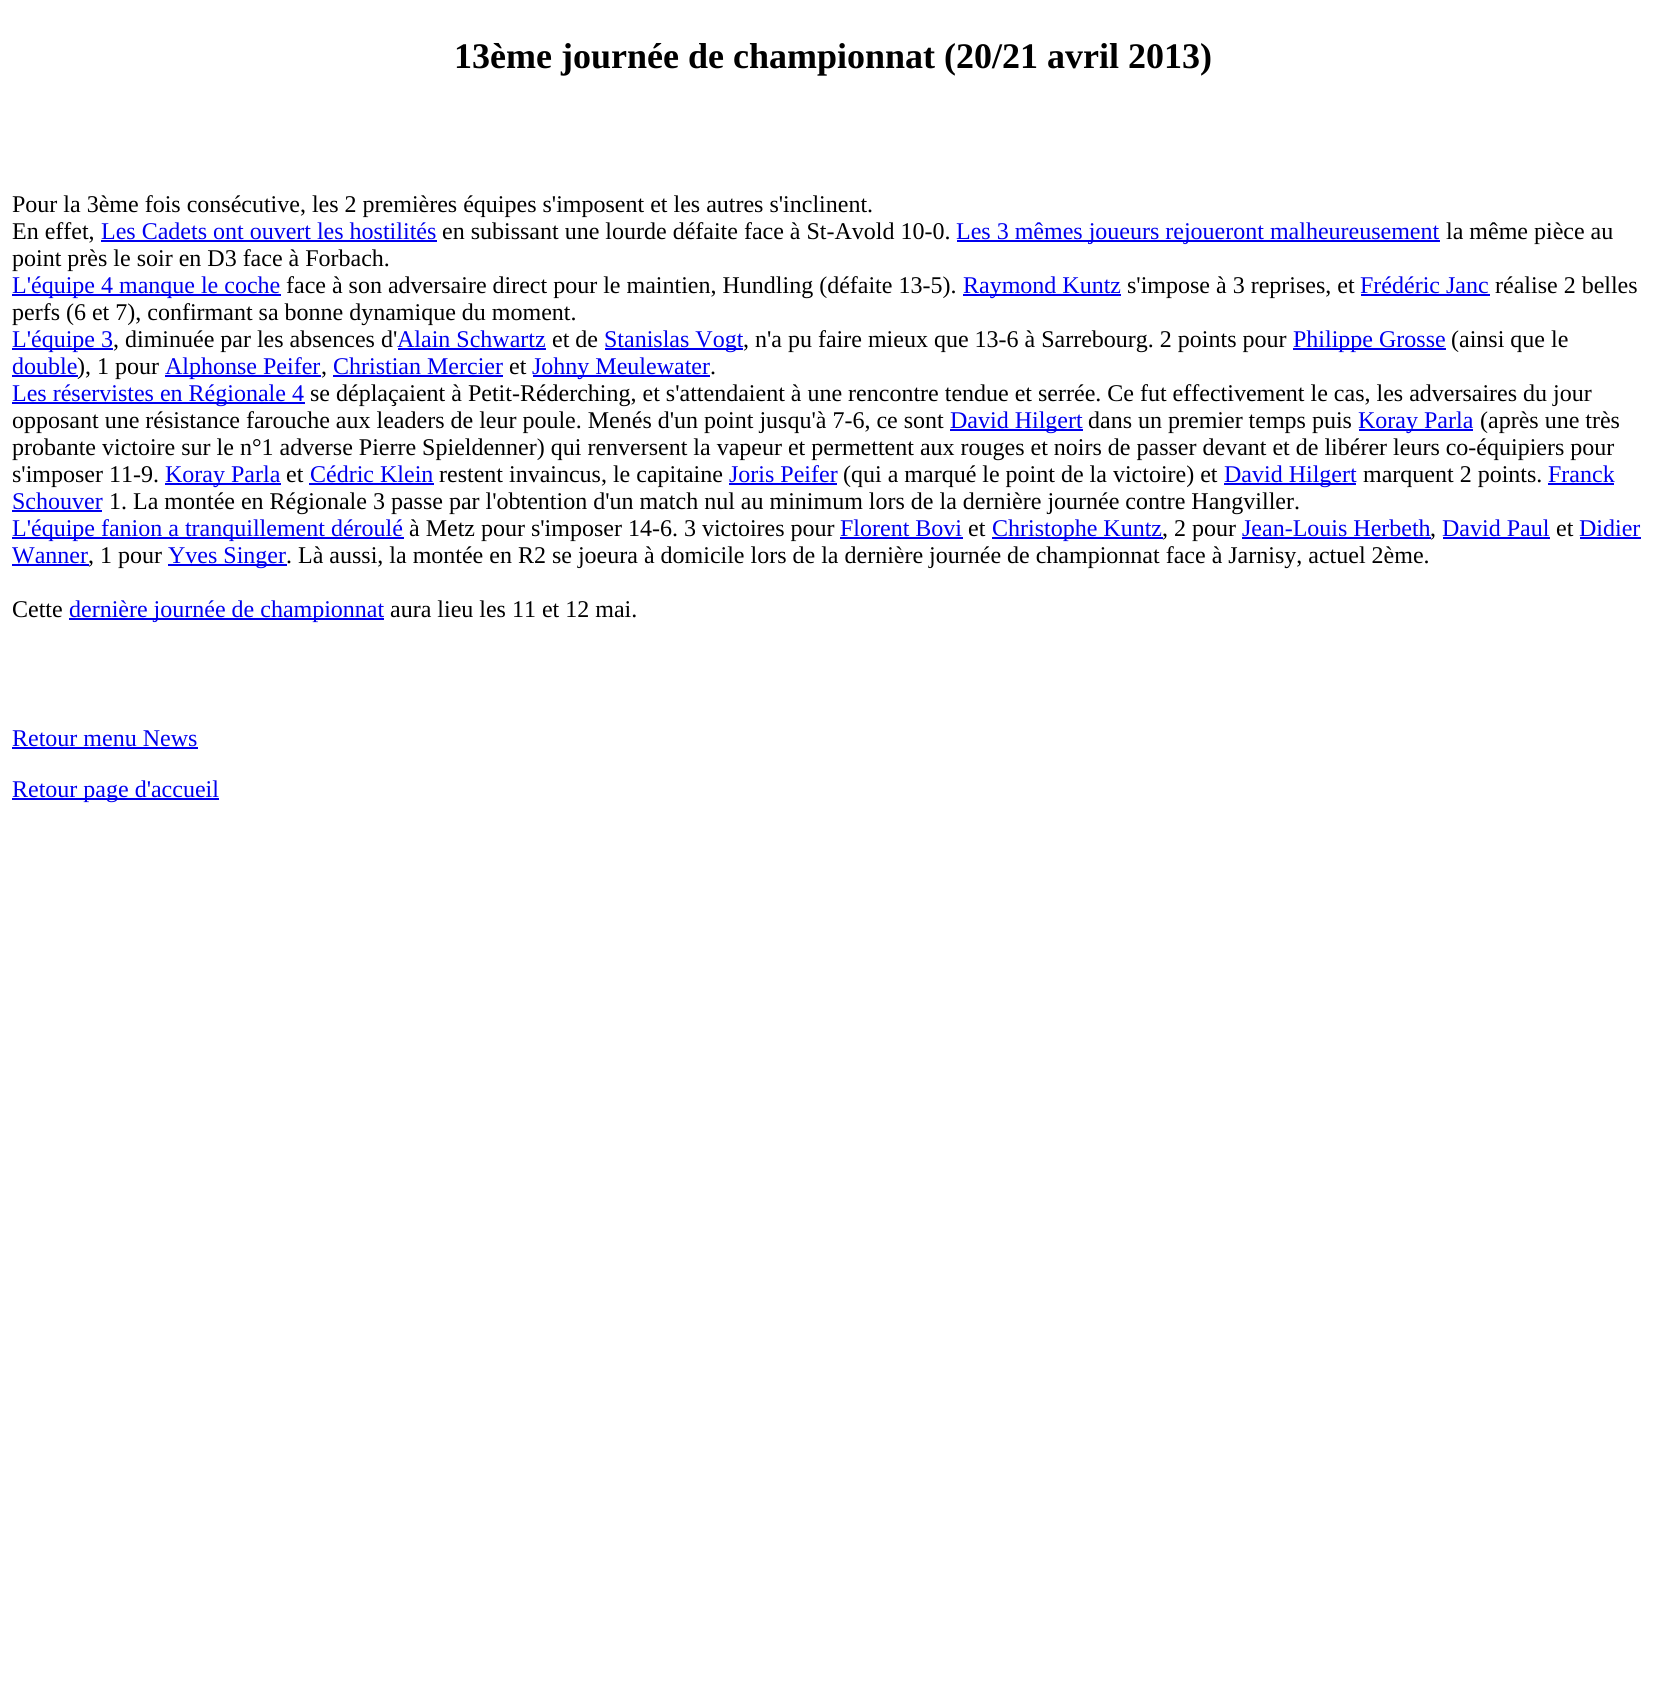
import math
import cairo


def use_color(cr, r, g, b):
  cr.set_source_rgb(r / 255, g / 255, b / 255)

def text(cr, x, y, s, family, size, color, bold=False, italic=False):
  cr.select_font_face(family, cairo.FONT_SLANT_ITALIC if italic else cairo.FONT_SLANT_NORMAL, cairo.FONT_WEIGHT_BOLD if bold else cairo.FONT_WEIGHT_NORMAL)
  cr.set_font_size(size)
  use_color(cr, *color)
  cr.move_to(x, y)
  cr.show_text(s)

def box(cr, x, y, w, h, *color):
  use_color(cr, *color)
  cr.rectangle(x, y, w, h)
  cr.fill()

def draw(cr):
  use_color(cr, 255, 255, 255)
  cr.paint()
  box(cr, 101, 240, 336, 2, 0, 0, 238)
  box(cr, 957, 240, 483, 2, 0, 0, 238)
  box(cr, 12, 294, 269, 2, 0, 0, 238)
  box(cr, 963, 294, 158, 2, 0, 0, 238)
  box(cr, 1361, 294, 129, 2, 0, 0, 238)
  box(cr, 12, 348, 101, 2, 0, 0, 238)
  box(cr, 398, 348, 148, 2, 0, 0, 238)
  box(cr, 605, 348, 138, 2, 0, 0, 238)
  box(cr, 1293, 348, 153, 2, 0, 0, 238)
  box(cr, 12, 375, 66, 2, 0, 0, 238)
  box(cr, 165, 375, 156, 2, 0, 0, 238)
  box(cr, 333, 375, 170, 2, 0, 0, 238)
  box(cr, 533, 375, 177, 2, 0, 0, 238)
  box(cr, 12, 402, 293, 2, 0, 0, 238)
  box(cr, 950, 429, 133, 2, 0, 0, 238)
  box(cr, 1359, 429, 114, 2, 0, 0, 238)
  box(cr, 165, 483, 116, 2, 0, 0, 238)
  box(cr, 309, 483, 125, 2, 0, 0, 238)
  box(cr, 729, 483, 108, 2, 0, 0, 238)
  box(cr, 1224, 483, 132, 2, 0, 0, 238)
  box(cr, 1548, 483, 66, 2, 0, 0, 238)
  box(cr, 12, 510, 90, 2, 0, 0, 238)
  box(cr, 12, 537, 392, 2, 0, 0, 238)
  box(cr, 840, 537, 123, 2, 0, 0, 238)
  box(cr, 992, 537, 171, 2, 0, 0, 238)
  box(cr, 1242, 537, 189, 2, 0, 0, 238)
  box(cr, 1443, 537, 107, 2, 0, 0, 238)
  box(cr, 1580, 537, 61, 2, 0, 0, 238)
  box(cr, 12, 564, 77, 2, 0, 0, 238)
  box(cr, 168, 564, 119, 2, 0, 0, 238)
  box(cr, 69, 618, 315, 2, 0, 0, 238)
  box(cr, 12, 747, 186, 2, 0, 0, 238)
  box(cr, 12, 798, 207, 2, 0, 0, 238)
  text(cr, 454, 68, "13ème journée de championnat (20/21 avril 2013)", "Liberation Serif", 36, (0, 0, 0), bold=True)
  text(cr, 12, 212, "Pour la 3ème fois consécutive, les 2 premières équipes s'imposent et les autres s'inclinent.", "Liberation Serif", 24, (0, 0, 0))
  text(cr, 12, 239, "En effet,", "Liberation Serif", 24, (0, 0, 0))
  text(cr, 101, 239, "Les Cadets ont ouvert les hostilités", "Liberation Serif", 24, (0, 0, 238))
  text(cr, 442, 239, "en subissant une lourde défaite face à St-Avold 10-0.", "Liberation Serif", 24, (0, 0, 0))
  text(cr, 956, 239, "Les 3 mêmes joueurs rejoueront malheureusement", "Liberation Serif", 24, (0, 0, 238))
  text(cr, 1446, 239, "la même pièce au", "Liberation Serif", 24, (0, 0, 0))
  text(cr, 12, 266, "point près le soir en D3 face à Forbach.", "Liberation Serif", 24, (0, 0, 0))
  text(cr, 12, 293, "L'équipe 4 manque le coche", "Liberation Serif", 24, (0, 0, 238))
  text(cr, 286, 293, "face à son adversaire direct pour le maintien, Hundling (défaite 13-5).", "Liberation Serif", 24, (0, 0, 0))
  text(cr, 963, 293, "Raymond Kuntz", "Liberation Serif", 24, (0, 0, 238))
  text(cr, 1127, 293, "s'impose à 3 reprises, et", "Liberation Serif", 24, (0, 0, 0))
  text(cr, 1360, 293, "Frédéric Janc", "Liberation Serif", 24, (0, 0, 238))
  text(cr, 1495, 293, "réalise 2 belles", "Liberation Serif", 24, (0, 0, 0))
  text(cr, 12, 320, "perfs (6 et 7), confirmant sa bonne dynamique du moment.", "Liberation Serif", 24, (0, 0, 0))
  text(cr, 12, 347, "L'équipe 3", "Liberation Serif", 24, (0, 0, 238))
  text(cr, 113, 347, ", diminuée par les absences d'", "Liberation Serif", 24, (0, 0, 0))
  text(cr, 397, 347, "Alain Schwartz", "Liberation Serif", 24, (0, 0, 238))
  text(cr, 552, 347, "et de", "Liberation Serif", 24, (0, 0, 0))
  text(cr, 604, 347, "Stanislas Vogt", "Liberation Serif", 24, (0, 0, 238))
  text(cr, 743, 347, ", n'a pu faire mieux que 13-6 à Sarrebourg. 2 points pour", "Liberation Serif", 24, (0, 0, 0))
  text(cr, 1293, 347, "Philippe Grosse", "Liberation Serif", 24, (0, 0, 238))
  text(cr, 1451, 347, "(ainsi que le", "Liberation Serif", 24, (0, 0, 0))
  text(cr, 12, 374, "double", "Liberation Serif", 24, (0, 0, 238))
  text(cr, 77, 374, "), 1 pour", "Liberation Serif", 24, (0, 0, 0))
  text(cr, 165, 374, "Alphonse Peifer", "Liberation Serif", 24, (0, 0, 238))
  text(cr, 321, 374, ",", "Liberation Serif", 24, (0, 0, 0))
  text(cr, 333, 374, "Christian Mercier", "Liberation Serif", 24, (0, 0, 238))
  text(cr, 509, 374, "et", "Liberation Serif", 24, (0, 0, 0))
  text(cr, 532, 374, "Johny Meulewater", "Liberation Serif", 24, (0, 0, 238))
  text(cr, 710, 374, ".", "Liberation Serif", 24, (0, 0, 0))
  text(cr, 12, 401, "Les réservistes en Régionale 4", "Liberation Serif", 24, (0, 0, 238))
  text(cr, 310, 401, "se déplaçaient à Petit-Réderching, et s'attendaient à une rencontre tendue et serrée. Ce fut effectivement le cas, les adversaires du jour", "Liberation Serif", 24, (0, 0, 0))
  text(cr, 12, 428, "opposant une résistance farouche aux leaders de leur poule. Menés d'un point jusqu'à 7-6, ce sont", "Liberation Serif", 24, (0, 0, 0))
  text(cr, 950, 428, "David Hilgert", "Liberation Serif", 24, (0, 0, 238))
  text(cr, 1088, 428, "dans un premier temps puis", "Liberation Serif", 24, (0, 0, 0))
  text(cr, 1358, 428, "Koray Parla", "Liberation Serif", 24, (0, 0, 238))
  text(cr, 1480, 428, "(après une très", "Liberation Serif", 24, (0, 0, 0))
  text(cr, 12, 455, "probante victoire sur le n°1 adverse Pierre Spieldenner) qui renversent la vapeur et permettent aux rouges et noirs de passer devant et de libérer leurs co-équipiers pour", "Liberation Serif", 24, (0, 0, 0))
  text(cr, 12, 482, "s'imposer 11-9.", "Liberation Serif", 24, (0, 0, 0))
  text(cr, 165, 482, "Koray Parla", "Liberation Serif", 24, (0, 0, 238))
  text(cr, 286, 482, "et", "Liberation Serif", 24, (0, 0, 0))
  text(cr, 310, 482, "Cédric Klein", "Liberation Serif", 24, (0, 0, 238))
  text(cr, 439, 482, "restent invaincus, le capitaine", "Liberation Serif", 24, (0, 0, 0))
  text(cr, 729, 482, "Joris Peifer", "Liberation Serif", 24, (0, 0, 238))
  text(cr, 843, 482, "(qui a marqué le point de la victoire) et", "Liberation Serif", 24, (0, 0, 0))
  text(cr, 1224, 482, "David Hilgert", "Liberation Serif", 24, (0, 0, 238))
  text(cr, 1363, 482, "marquent 2 points.", "Liberation Serif", 24, (0, 0, 0))
  text(cr, 1548, 482, "Franck", "Liberation Serif", 24, (0, 0, 238))
  text(cr, 12, 509, "Schouver", "Liberation Serif", 24, (0, 0, 238))
  text(cr, 109, 509, "1. La montée en Régionale 3 passe par l'obtention d'un match nul au minimum lors de la dernière journée contre Hangviller.", "Liberation Serif", 24, (0, 0, 0))
  text(cr, 12, 536, "L'équipe fanion a tranquillement déroulé", "Liberation Serif", 24, (0, 0, 238))
  text(cr, 409, 536, "à Metz pour s'imposer 14-6. 3 victoires pour", "Liberation Serif", 24, (0, 0, 0))
  text(cr, 840, 536, "Florent Bovi", "Liberation Serif", 24, (0, 0, 238))
  text(cr, 968, 536, "et", "Liberation Serif", 24, (0, 0, 0))
  text(cr, 992, 536, "Christophe Kuntz", "Liberation Serif", 24, (0, 0, 238))
  text(cr, 1162, 536, ", 2 pour", "Liberation Serif", 24, (0, 0, 0))
  text(cr, 1242, 536, "Jean-Louis Herbeth", "Liberation Serif", 24, (0, 0, 238))
  text(cr, 1430, 536, ",", "Liberation Serif", 24, (0, 0, 0))
  text(cr, 1442, 536, "David Paul", "Liberation Serif", 24, (0, 0, 238))
  text(cr, 1556, 536, "et", "Liberation Serif", 24, (0, 0, 0))
  text(cr, 1579, 536, "Didier", "Liberation Serif", 24, (0, 0, 238))
  text(cr, 12, 563, "Wanner", "Liberation Serif", 24, (0, 0, 238))
  text(cr, 88, 563, ", 1 pour", "Liberation Serif", 24, (0, 0, 0))
  text(cr, 168, 563, "Yves Singer", "Liberation Serif", 24, (0, 0, 238))
  text(cr, 286, 563, ". Là aussi, la montée en R2 se joeura à domicile lors de la dernière journée de championnat face à Jarnisy, actuel 2ème.", "Liberation Serif", 24, (0, 0, 0))
  text(cr, 12, 617, "Cette", "Liberation Serif", 24, (0, 0, 0))
  text(cr, 69, 617, "dernière journée de championnat", "Liberation Serif", 24, (0, 0, 238))
  text(cr, 390, 617, "aura lieu les 11 et 12 mai.", "Liberation Serif", 24, (0, 0, 0))
  text(cr, 12, 746, "Retour menu News", "Liberation Serif", 24, (0, 0, 238))
  text(cr, 12, 797, "Retour page d'accueil", "Liberation Serif", 24, (0, 0, 238))


surface = cairo.ImageSurface(cairo.FORMAT_RGB24, 1664, 1692)
cr = cairo.Context(surface)
options = cairo.FontOptions()
options.set_hint_metrics(cairo.HINT_METRICS_OFF)
options.set_hint_style(cairo.HINT_STYLE_NONE)
cr.set_font_options(options)
cr.set_miter_limit(4)
draw(cr)
surface.write_to_png("out.png")
